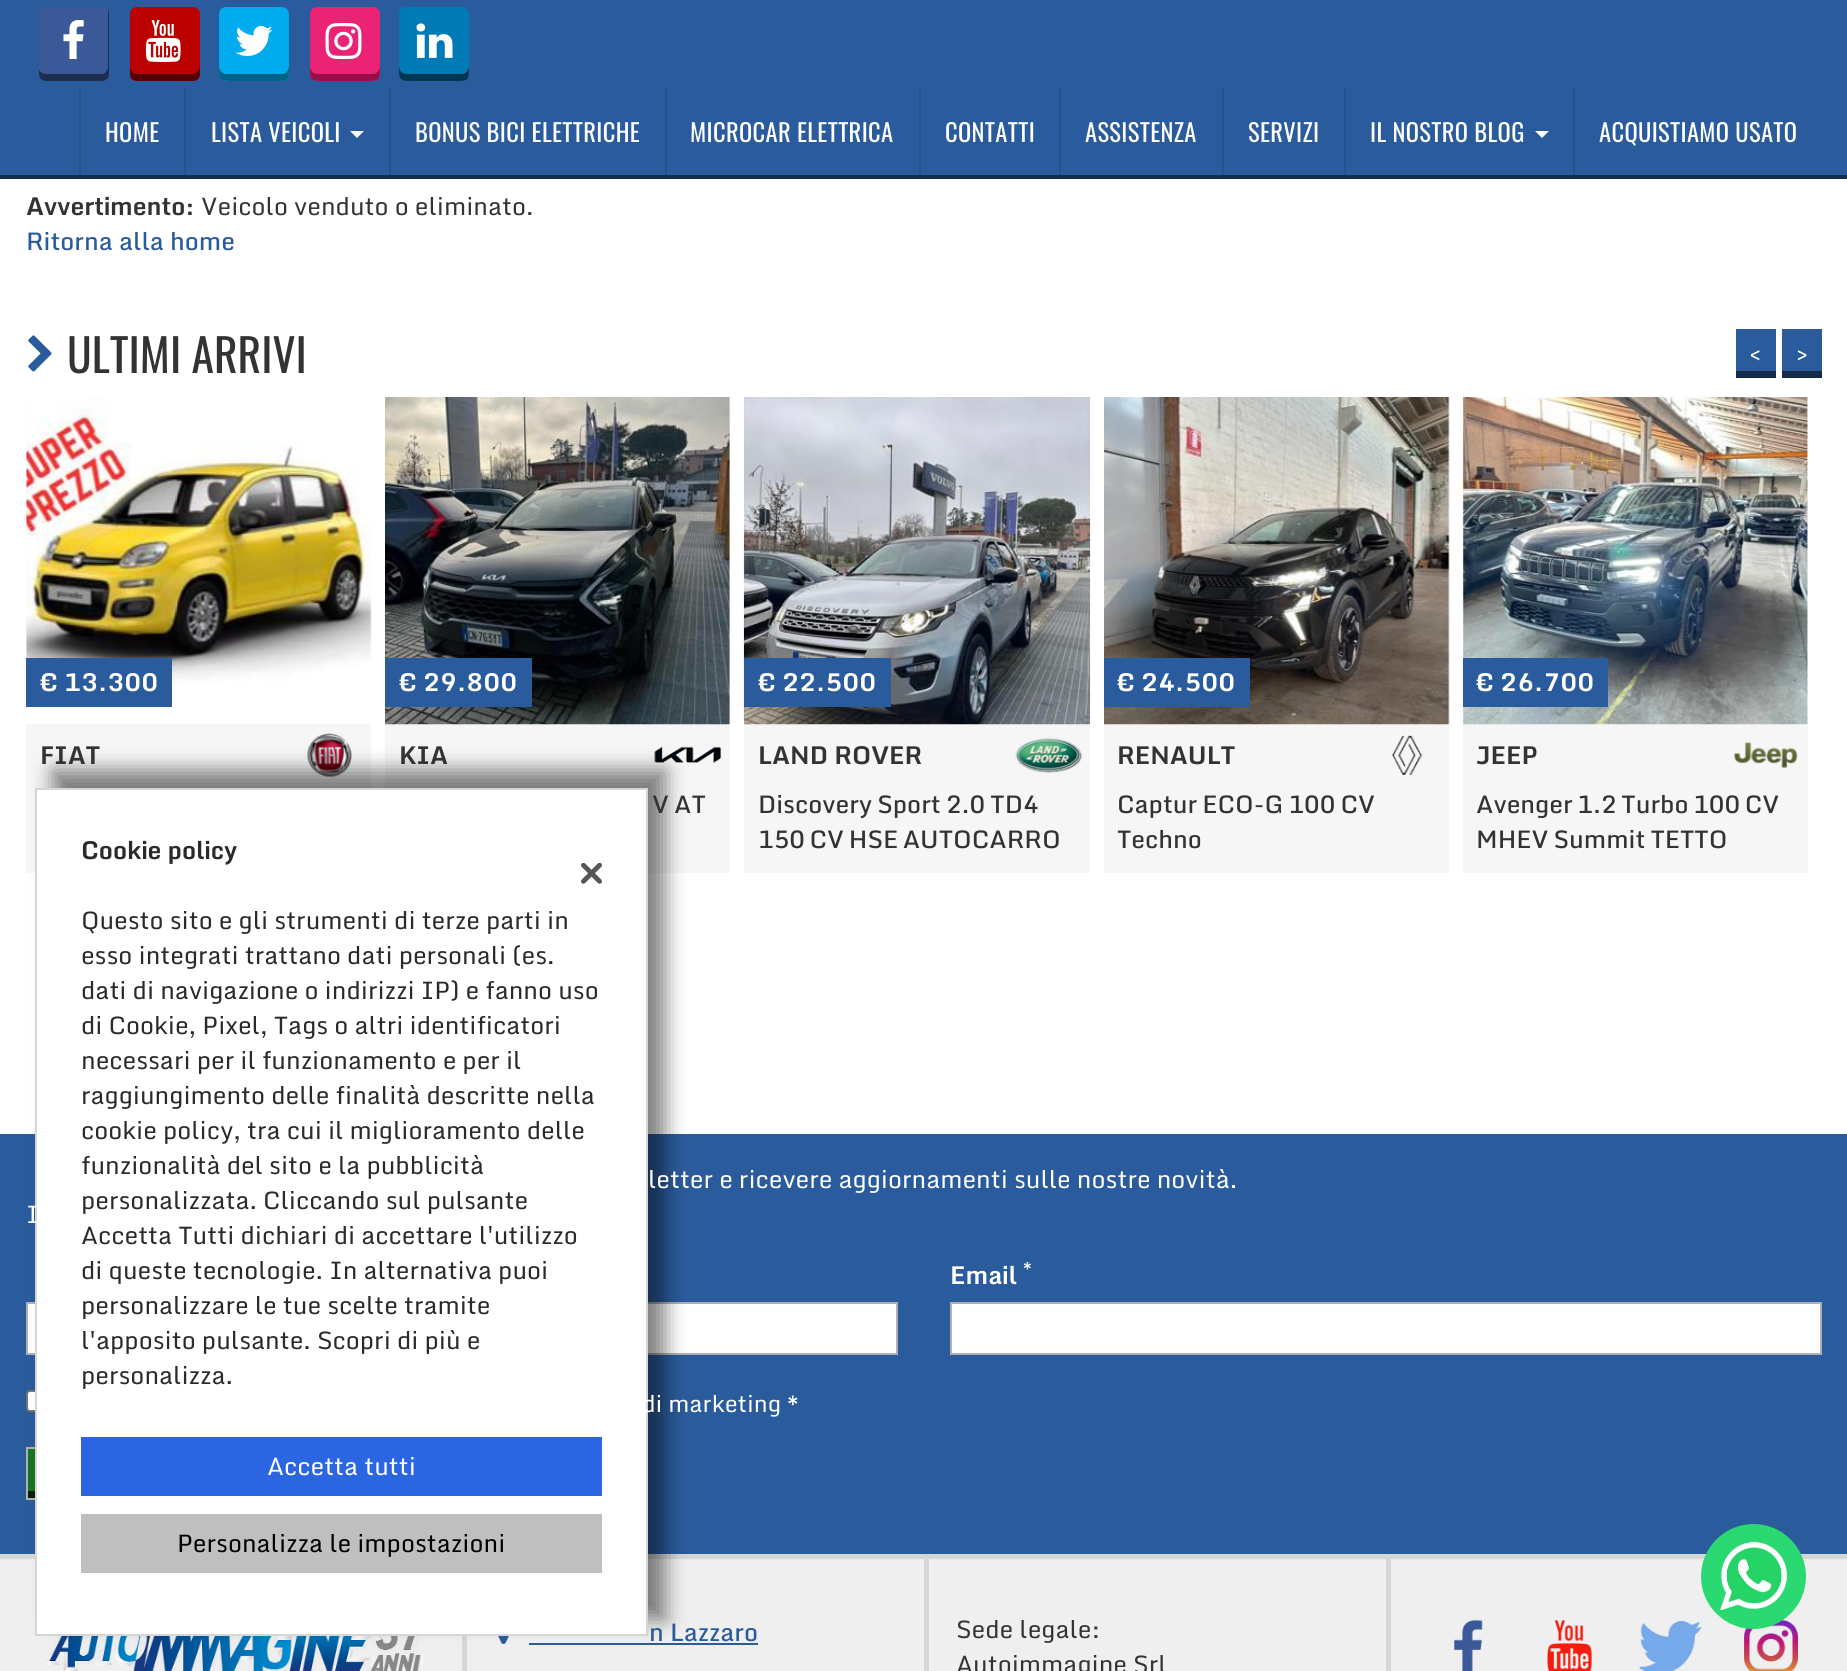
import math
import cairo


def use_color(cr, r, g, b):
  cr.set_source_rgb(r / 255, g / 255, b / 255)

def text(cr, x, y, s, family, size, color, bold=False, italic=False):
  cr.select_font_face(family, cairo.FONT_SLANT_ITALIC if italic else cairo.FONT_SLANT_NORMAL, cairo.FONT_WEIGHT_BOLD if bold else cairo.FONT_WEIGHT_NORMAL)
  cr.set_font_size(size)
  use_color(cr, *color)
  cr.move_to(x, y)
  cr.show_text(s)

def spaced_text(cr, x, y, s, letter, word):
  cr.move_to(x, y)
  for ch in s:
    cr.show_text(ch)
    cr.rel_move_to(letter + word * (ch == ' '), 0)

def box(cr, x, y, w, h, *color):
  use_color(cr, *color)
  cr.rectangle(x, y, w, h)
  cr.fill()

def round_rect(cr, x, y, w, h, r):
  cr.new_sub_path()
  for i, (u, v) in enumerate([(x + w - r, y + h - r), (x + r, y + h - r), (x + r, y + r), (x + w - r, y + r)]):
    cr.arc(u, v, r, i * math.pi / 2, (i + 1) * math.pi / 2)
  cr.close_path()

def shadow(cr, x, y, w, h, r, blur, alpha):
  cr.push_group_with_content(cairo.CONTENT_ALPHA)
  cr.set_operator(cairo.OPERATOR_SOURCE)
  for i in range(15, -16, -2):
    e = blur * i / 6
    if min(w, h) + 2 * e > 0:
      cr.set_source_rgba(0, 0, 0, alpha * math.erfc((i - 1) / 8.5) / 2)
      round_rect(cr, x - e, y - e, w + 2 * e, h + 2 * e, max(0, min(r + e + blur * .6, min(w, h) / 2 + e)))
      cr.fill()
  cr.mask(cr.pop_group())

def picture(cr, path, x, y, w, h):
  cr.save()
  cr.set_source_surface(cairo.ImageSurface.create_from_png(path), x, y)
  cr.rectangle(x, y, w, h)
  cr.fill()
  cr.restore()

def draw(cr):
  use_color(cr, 255, 255, 255)
  cr.paint()
  box(cr, 0, 175, 1847, 4, 20, 44, 76)
  box(cr, 0, 0, 1847, 175, 42, 91, 156)
  use_color(cr, 59, 89, 152)
  round_rect(cr, 39, 7, 70, 74, 7)
  cr.fill()
  use_color(cr, 30, 46, 79)
  cr.new_path()
  cr.move_to(39, 70)
  cr.line_to(39, 74)
  cr.curve_to(39, 78, 42, 81, 46, 81)
  cr.line_to(102, 81)
  cr.curve_to(106, 81, 109, 78, 109, 74)
  cr.line_to(109, 14)
  cr.curve_to(109, 13, 109, 11, 108, 10)
  cr.line_to(108, 66)
  cr.curve_to(108, 70, 105, 74, 102, 74)
  cr.line_to(46, 74)
  cr.curve_to(43, 74, 40, 72, 39, 70)
  cr.close_path()
  cr.fill()
  picture(cr, "img_01.png", 63, 20, 21, 39)
  use_color(cr, 187, 0, 0)
  round_rect(cr, 130, 7, 70, 74, 7)
  cr.fill()
  use_color(cr, 85, 0, 0)
  cr.new_path()
  cr.move_to(130, 66)
  cr.curve_to(130, 81, 130, 81, 146, 81)
  cr.line_to(184, 81)
  cr.curve_to(200, 81, 200, 81, 200, 66)
  cr.curve_to(200, 70, 196, 74, 192, 74)
  cr.line_to(136, 74)
  cr.curve_to(133, 74, 130, 70, 130, 66)
  cr.close_path()
  cr.fill()
  picture(cr, "img_02.png", 145, 20, 36, 42)
  use_color(cr, 0, 172, 237)
  round_rect(cr, 219, 7, 70, 74, 7)
  cr.fill()
  use_color(cr, 0, 98, 135)
  cr.new_path()
  cr.move_to(219, 66)
  cr.curve_to(219, 81, 219, 81, 235, 81)
  cr.line_to(273, 81)
  cr.curve_to(289, 81, 289, 81, 289, 66)
  cr.curve_to(289, 70, 286, 74, 282, 74)
  cr.line_to(226, 74)
  cr.curve_to(222, 74, 219, 70, 219, 66)
  cr.close_path()
  cr.fill()
  picture(cr, "img_03.png", 235, 26, 38, 30)
  use_color(cr, 234, 35, 116)
  round_rect(cr, 310, 7, 70, 74, 7)
  cr.fill()
  use_color(cr, 152, 15, 71)
  cr.new_path()
  cr.move_to(310, 66)
  cr.curve_to(310, 81, 310, 81, 326, 81)
  cr.line_to(364, 81)
  cr.curve_to(380, 81, 380, 81, 380, 66)
  cr.curve_to(380, 70, 377, 74, 373, 74)
  cr.line_to(317, 74)
  cr.curve_to(313, 74, 310, 70, 310, 66)
  cr.close_path()
  cr.fill()
  picture(cr, "img_04.png", 325, 23, 37, 36)
  use_color(cr, 0, 123, 182)
  round_rect(cr, 399, 7, 70, 74, 7)
  cr.fill()
  use_color(cr, 0, 54, 80)
  cr.new_path()
  cr.move_to(399, 66)
  cr.curve_to(399, 81, 399, 81, 415, 81)
  cr.line_to(453, 81)
  cr.curve_to(469, 81, 469, 81, 469, 66)
  cr.curve_to(469, 70, 466, 74, 462, 74)
  cr.line_to(406, 74)
  cr.curve_to(402, 74, 399, 70, 399, 66)
  cr.close_path()
  cr.fill()
  picture(cr, "img_05.png", 416, 23, 37, 35)
  box(cr, 79, 88, 2, 87, 38, 82, 140)
  box(cr, 184, 88, 2, 87, 38, 82, 140)
  use_color(cr, 255, 255, 255)
  cr.new_path()
  cr.move_to(350, 131)
  cr.line_to(364, 131)
  cr.line_to(357, 138)
  cr.close_path()
  cr.fill()
  box(cr, 389, 88, 2, 87, 38, 82, 140)
  box(cr, 665, 88, 2, 87, 38, 82, 140)
  box(cr, 919, 88, 2, 87, 38, 82, 140)
  box(cr, 1059, 88, 2, 87, 38, 82, 140)
  box(cr, 1222, 88, 2, 87, 38, 82, 140)
  box(cr, 1344, 88, 2, 87, 38, 82, 140)
  use_color(cr, 255, 255, 255)
  cr.new_path()
  cr.move_to(1535, 131)
  cr.line_to(1549, 131)
  cr.line_to(1542, 138)
  cr.close_path()
  cr.fill()
  box(cr, 1573, 88, 2, 87, 38, 82, 140)
  picture(cr, "img_06.png", 28, 335, 24, 37)
  box(cr, 1736, 329, 40, 42, 42, 91, 156)
  box(cr, 1736, 371, 40, 7, 20, 44, 76)
  box(cr, 1782, 329, 40, 42, 42, 91, 156)
  box(cr, 1782, 371, 40, 7, 20, 44, 76)
  box(cr, 26, 397, 345, 476, 246, 246, 246)
  picture(cr, "img_07.png", 26, 397, 346, 327)
  box(cr, 26, 658, 146, 49, 42, 91, 156)
  picture(cr, "img_08.png", 307, 733, 45, 44)
  box(cr, 385, 397, 345, 476, 246, 246, 246)
  picture(cr, "img_09.png", 385, 397, 345, 328)
  box(cr, 385, 658, 147, 49, 42, 91, 156)
  picture(cr, "img_10.png", 654, 746, 67, 17)
  box(cr, 744, 724, 346, 149, 246, 246, 246)
  picture(cr, "img_11.png", 743, 397, 348, 328)
  box(cr, 744, 658, 147, 49, 42, 91, 156)
  picture(cr, "img_12.png", 1015, 737, 67, 36)
  box(cr, 1104, 397, 345, 476, 246, 246, 246)
  picture(cr, "img_13.png", 1104, 397, 346, 328)
  box(cr, 1104, 658, 146, 49, 42, 91, 156)
  picture(cr, "img_14.png", 1391, 735, 32, 41)
  box(cr, 1463, 397, 345, 476, 246, 246, 246)
  picture(cr, "img_15.png", 1462, 397, 346, 328)
  box(cr, 1463, 658, 145, 49, 42, 91, 156)
  picture(cr, "img_16.png", 1734, 742, 64, 26)
  box(cr, 0, 1134, 1847, 420, 42, 91, 156)
  use_color(cr, 255, 255, 255)
  cr.rectangle(27, 1303, 870, 51)
  cr.fill_preserve()
  use_color(cr, 176, 176, 176)
  cr.stroke()
  use_color(cr, 255, 255, 255)
  round_rect(cr, 27, 1391, 21, 20, 3)
  cr.fill_preserve()
  use_color(cr, 118, 118, 118)
  cr.stroke()
  box(cr, 28, 1449, 7, 42, 26, 115, 35)
  box(cr, 28, 1491, 7, 7, 7, 32, 10)
  cr.rectangle(27, 1448, 123, 51)
  use_color(cr, 176, 176, 176)
  cr.stroke()
  box(cr, 0, 1559, 1847, 112, 239, 239, 239)
  box(cr, 0, 1554, 1847, 5, 214, 214, 214)
  box(cr, 462, 1636, 5, 35, 214, 214, 214)
  picture(cr, "img_19.png", 498, 1636, 11, 8)
  box(cr, 529, 1643, 229, 2, 42, 91, 156)
  picture(cr, "img_24.png", 44, 1636, 382, 35)
  use_color(cr, 0, 0, 0)
  shadow(cr, 53, 770, 612, 849, 0, 10.5, 0.5)
  use_color(cr, 255, 255, 255)
  cr.rectangle(36, 789, 611, 846)
  cr.fill_preserve()
  use_color(cr, 214, 214, 214)
  cr.stroke()
  picture(cr, "img_17.png", 581, 863, 21, 21)
  box(cr, 81, 1437, 521, 59, 44, 101, 225)
  box(cr, 81, 1514, 521, 59, 191, 191, 191)
  use_color(cr, 255, 255, 255)
  cr.rectangle(951, 1303, 870, 51)
  cr.fill_preserve()
  use_color(cr, 176, 176, 176)
  cr.stroke()
  picture(cr, "img_22.png", 1639, 1620, 63, 51)
  picture(cr, "img_23.png", 1744, 1620, 54, 51)
  use_color(cr, 42, 217, 113)
  cr.arc(1753.5, 1576.5, 52.5, 0, 2 * math.pi)
  cr.fill()
  picture(cr, "img_18.png", 1720, 1541, 67, 69)
  box(cr, 924, 1559, 5, 112, 214, 214, 214)
  box(cr, 1386, 1559, 5, 112, 214, 214, 214)
  picture(cr, "img_20.png", 1454, 1620, 29, 51)
  picture(cr, "img_21.png", 1547, 1620, 45, 51)
  cr.select_font_face("Oswald")
  cr.set_font_size(24.5)
  use_color(cr, 255, 255, 255)
  spaced_text(cr, 105, 142, "HOME", 0.35, 0)
  spaced_text(cr, 211, 142, "LISTA VEICOLI", 0.35, 0)
  spaced_text(cr, 415, 142, "BONUS BICI ELETTRICHE", 0.35, 0)
  spaced_text(cr, 690, 142, "MICROCAR ELETTRICA", 0.35, 0)
  spaced_text(cr, 945, 142, "CONTATTI", 0.35, 0)
  spaced_text(cr, 1085, 142, "ASSISTENZA", 0.35, 0)
  spaced_text(cr, 1248, 142, "SERVIZI", 0.35, 0)
  spaced_text(cr, 1370, 142, "IL NOSTRO BLOG", 0.35, 0)
  spaced_text(cr, 1599, 142, "ACQUISTIAMO USATO", 0.35, 0)
  text(cr, 26, 215, "Avvertimento:", "Monda", 24.5, (51, 51, 51), bold=True)
  text(cr, 201, 215, "Veicolo venduto o eliminato.", "Monda", 24.5, (51, 51, 51))
  text(cr, 26, 250, "Ritorna alla home", "Monda Medium", 24.5, (42, 91, 156))
  text(cr, 67, 373, "ULTIMI ARRIVI", "Oswald", 45.5, (51, 51, 51))
  text(cr, 1749, 362, "<", "Monda", 24.5, (255, 255, 255))
  text(cr, 1796, 362, ">", "Monda", 24.5, (255, 255, 255))
  text(cr, 40, 691, "€ 13.300", "Monda", 24.5, (255, 255, 255), bold=True)
  text(cr, 40, 764, "FIAT", "Monda", 24.5, (51, 51, 51), bold=True)
  text(cr, 399, 691, "€ 29.800", "Monda", 24.5, (255, 255, 255), bold=True)
  text(cr, 399, 764, "KIA", "Monda", 24.5, (51, 51, 51), bold=True)
  cr.select_font_face("Monda Medium")
  spaced_text(cr, 652, 813, "V AT", 0, -1)
  text(cr, 758, 691, "€ 22.500", "Monda", 24.5, (255, 255, 255), bold=True)
  text(cr, 758, 764, "LAND ROVER", "Monda", 24.5, (51, 51, 51), bold=True)
  cr.select_font_face("Monda Medium")
  spaced_text(cr, 758, 813, "Discovery Sport 2.0 TD4", 0, -1)
  spaced_text(cr, 758, 848, "150 CV HSE AUTOCARRO", 0, -1.5)
  text(cr, 1117, 691, "€ 24.500", "Monda", 24.5, (255, 255, 255), bold=True)
  text(cr, 1117, 764, "RENAULT", "Monda", 24.5, (51, 51, 51), bold=True)
  cr.select_font_face("Monda Medium")
  spaced_text(cr, 1117, 813, "Captur ECO-G 100 CV", 0, -1)
  text(cr, 1117, 848, "Techno", "Monda Medium", 24.5, (51, 51, 51))
  text(cr, 1476, 691, "€ 26.700", "Monda", 24.5, (255, 255, 255), bold=True)
  text(cr, 1476, 764, "JEEP", "Monda", 24.5, (51, 51, 51), bold=True)
  cr.select_font_face("Monda Medium")
  spaced_text(cr, 1476, 813, "Avenger 1.2 Turbo 100 CV", 0, -1.5)
  spaced_text(cr, 1476, 848, "MHEV Summit TETTO", 0, -1)
  text(cr, 81, 859, "Cookie policy", "Monda", 24.5, (43, 41, 41), bold=True)
  text(cr, 81, 929, "Questo sito e gli strumenti di terze parti in", "Monda", 24.5, (43, 41, 41))
  text(cr, 81, 964, "esso integrati trattano dati personali (es.", "Monda", 24.5, (43, 41, 41))
  text(cr, 81, 999, "dati di navigazione o indirizzi IP) e fanno uso", "Monda", 24.5, (43, 41, 41))
  text(cr, 81, 1034, "di Cookie, Pixel, Tags o altri identificatori", "Monda", 24.5, (43, 41, 41))
  text(cr, 81, 1069, "necessari per il funzionamento e per il", "Monda", 24.5, (43, 41, 41))
  text(cr, 81, 1104, "raggiungimento delle finalità descritte nella", "Monda", 24.5, (43, 41, 41))
  text(cr, 81, 1139, "cookie policy, tra cui il miglioramento delle", "Monda", 24.5, (43, 41, 41))
  text(cr, 81, 1174, "funzionalità del sito e la pubblicità", "Monda", 24.5, (43, 41, 41))
  text(cr, 81, 1209, "personalizzata. Cliccando sul pulsante", "Monda", 24.5, (43, 41, 41))
  text(cr, 81, 1244, "Accetta Tutti dichiari di accettare l'utilizzo", "Monda", 24.5, (43, 41, 41))
  text(cr, 81, 1279, "di queste tecnologie. In alternativa puoi", "Monda", 24.5, (43, 41, 41))
  text(cr, 81, 1314, "personalizzare le tue scelte tramite", "Monda", 24.5, (43, 41, 41))
  text(cr, 81, 1349, "l'apposito pulsante. Scopri di più e", "Monda", 24.5, (43, 41, 41))
  text(cr, 81, 1384, "personalizza.", "Monda", 24.5, (43, 41, 41))
  text(cr, 267, 1475, "Accetta tutti", "Monda", 24.5, (255, 255, 255))
  text(cr, 177, 1552, "Personalizza le impostazioni", "Monda", 24.5, (0, 0, 0))
  text(cr, 648, 1188, "letter e ricevere aggiornamenti sulle nostre novità.", "Monda", 24.5, (255, 255, 255))
  text(cr, 26, 1223, "I", "Monda", 24.5, (255, 255, 255))
  text(cr, 950, 1284, "Email", "Monda", 24.5, (255, 255, 255), bold=True)
  text(cr, 1023, 1275, "*", "Monda", 18, (255, 255, 255), bold=True)
  text(cr, 642, 1412, "di marketing *", "Monda", 23.25, (255, 255, 255))
  text(cr, 649, 1641, "n Lazzaro", "Monda Medium", 24.5, (42, 91, 156))
  text(cr, 956, 1638, "Sede legale:", "Monda", 24.5, (51, 51, 51))
  text(cr, 956, 1673, "Autoimmagine Srl", "Monda", 24.5, (51, 51, 51))


surface = cairo.ImageSurface(cairo.FORMAT_RGB24, 1847, 1671)
cr = cairo.Context(surface)
options = cairo.FontOptions()
options.set_hint_metrics(cairo.HINT_METRICS_OFF)
options.set_hint_style(cairo.HINT_STYLE_NONE)
cr.set_font_options(options)
cr.set_miter_limit(4)
draw(cr)
surface.write_to_png("out.png")
